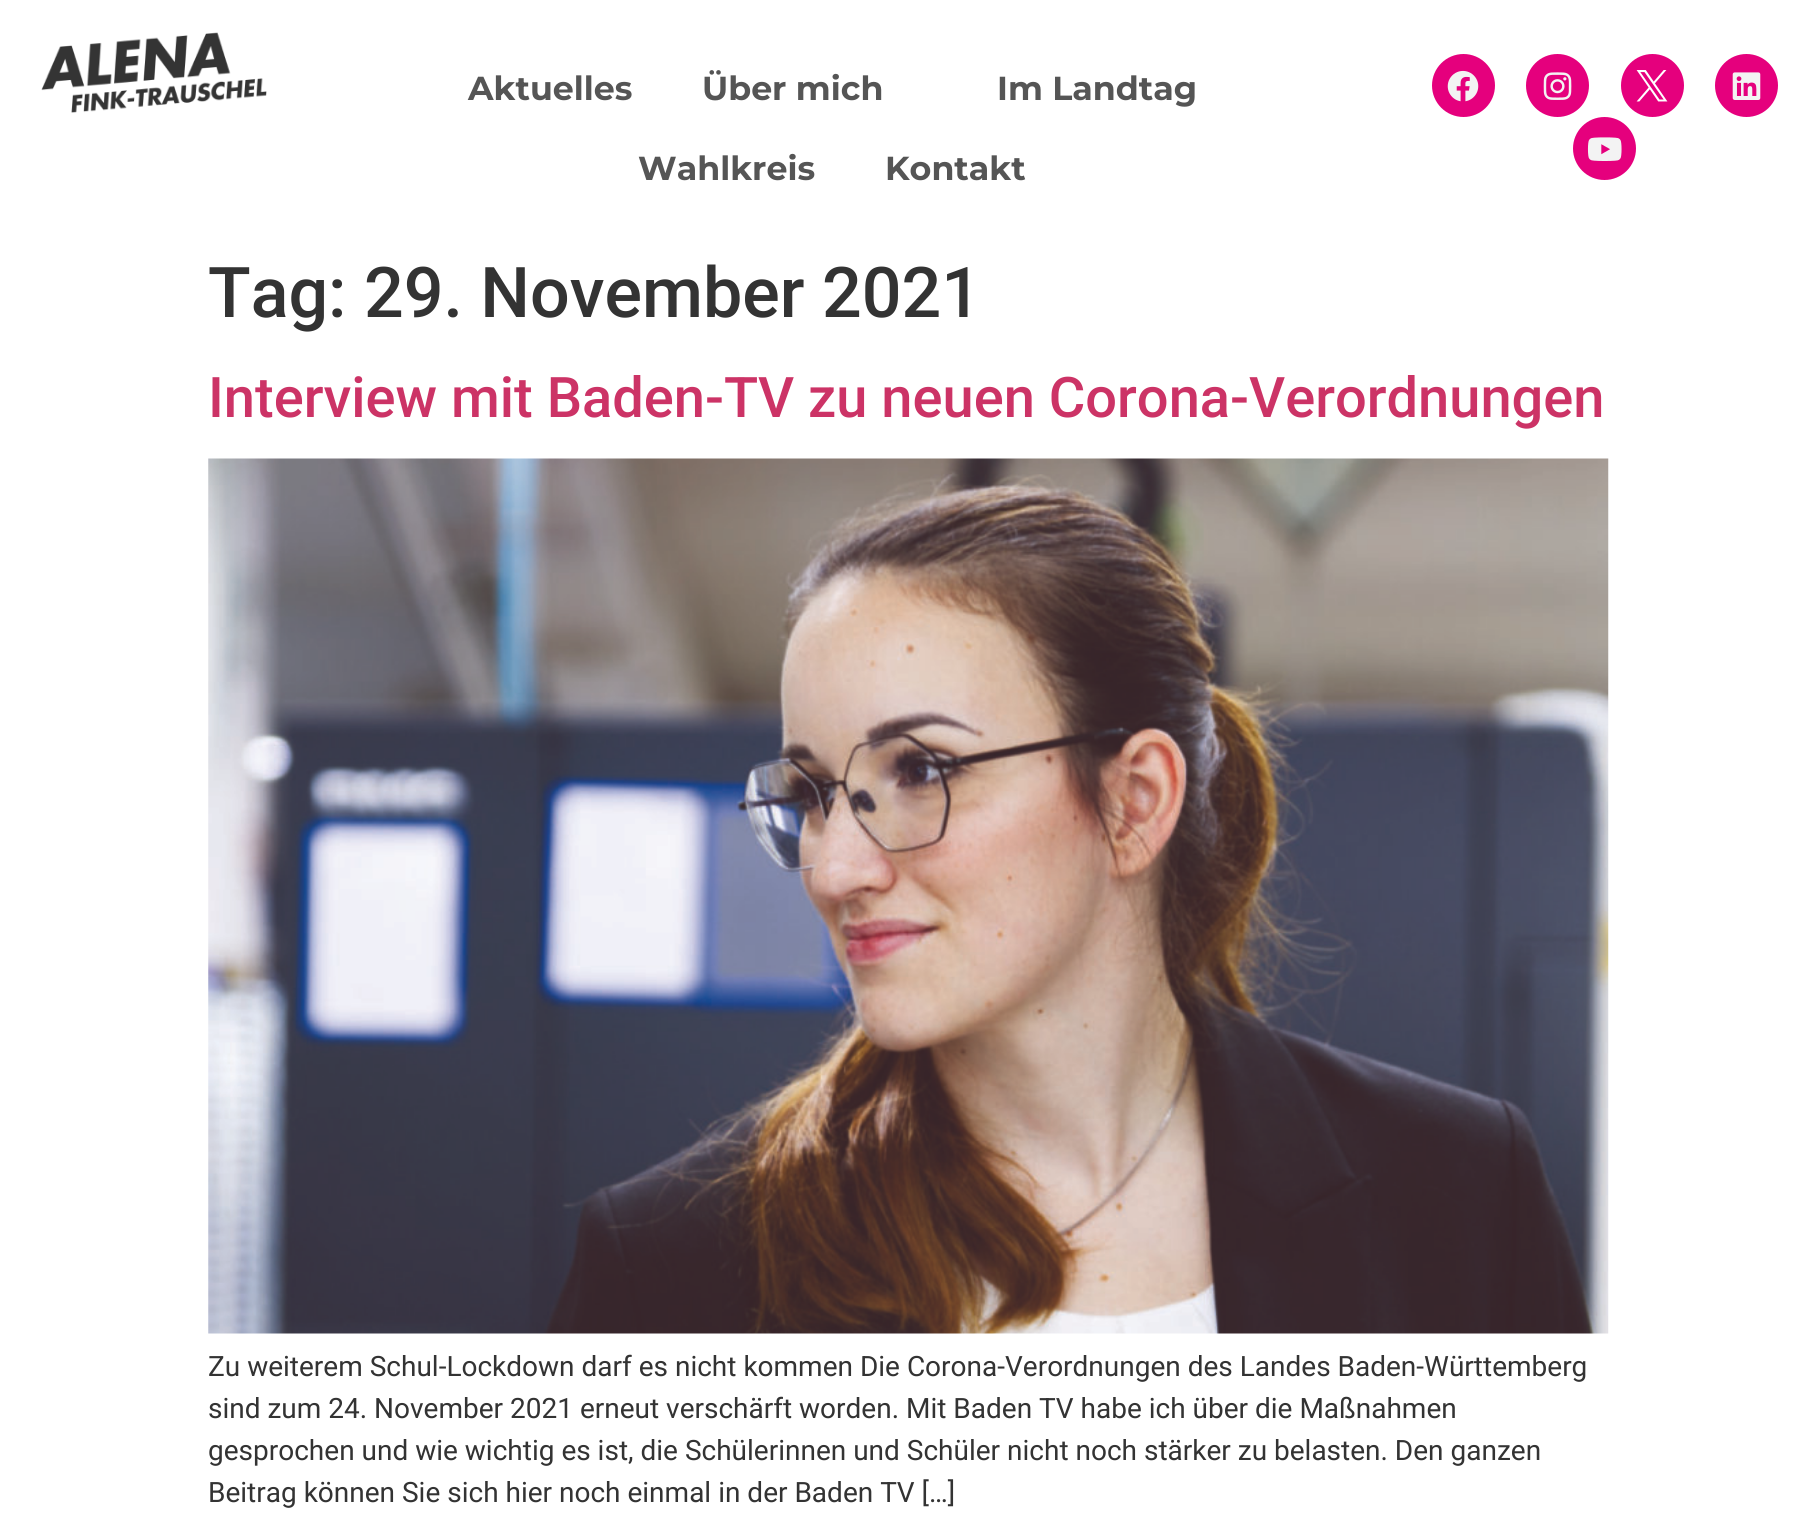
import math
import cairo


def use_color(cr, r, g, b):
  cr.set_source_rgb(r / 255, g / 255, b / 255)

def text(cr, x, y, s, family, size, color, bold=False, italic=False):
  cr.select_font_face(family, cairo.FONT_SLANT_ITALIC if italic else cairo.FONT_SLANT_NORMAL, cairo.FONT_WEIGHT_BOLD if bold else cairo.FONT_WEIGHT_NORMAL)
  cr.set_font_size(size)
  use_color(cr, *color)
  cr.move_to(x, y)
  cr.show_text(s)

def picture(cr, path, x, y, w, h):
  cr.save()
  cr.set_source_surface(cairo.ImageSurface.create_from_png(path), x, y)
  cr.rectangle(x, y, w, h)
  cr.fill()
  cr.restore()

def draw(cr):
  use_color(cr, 255, 255, 255)
  cr.paint()
  picture(cr, "img_01.png", 41, 32, 226, 81)
  use_color(cr, 229, 0, 125)
  cr.arc(1463.5, 85.5, 31.5, 0, 2 * math.pi)
  cr.fill()
  picture(cr, "img_02.png", 1447, 70, 32, 32)
  cr.arc(1557.5, 85.5, 31.5, 0, 2 * math.pi)
  cr.fill()
  picture(cr, "img_03.png", 1543, 72, 29, 28)
  cr.arc(1652.5, 85.5, 31.5, 0, 2 * math.pi)
  cr.fill()
  picture(cr, "img_04.png", 1636, 70, 32, 32)
  cr.arc(1746.5, 85.5, 31.5, 0, 2 * math.pi)
  cr.fill()
  picture(cr, "img_05.png", 1732, 72, 29, 28)
  cr.arc(1604.5, 148.5, 31.5, 0, 2 * math.pi)
  cr.fill()
  picture(cr, "img_06.png", 1587, 137, 35, 24)
  picture(cr, "img_07.png", 208, 458, 1401, 876)
  text(cr, 468, 100, "Aktuelles", "Montserrat Thin", 33.25, (85, 85, 85))
  text(cr, 702, 100, "Über mich", "Montserrat Thin", 33.25, (85, 85, 85))
  text(cr, 997, 100, "Im Landtag", "Montserrat Thin", 33.25, (85, 85, 85))
  text(cr, 638, 180, "Wahlkreis", "Montserrat Thin", 33.25, (85, 85, 85))
  text(cr, 885, 180, "Kontakt", "Montserrat Thin", 33.25, (85, 85, 85))
  text(cr, 208, 317, "Tag: 29. November 2021", "Roboto Medium", 70, (51, 51, 51))
  text(cr, 208, 417, "Interview mit Baden-TV zu neuen Corona-Verordnungen", "Roboto Medium", 56, (204, 51, 102))
  text(cr, 208, 1376, "Zu weiterem Schul-Lockdown darf es nicht kommen Die Corona-Verordnungen des Landes Baden-Württemberg", "Roboto", 28, (51, 51, 51))
  text(cr, 208, 1418, "sind zum 24. November 2021 erneut verschärft worden. Mit Baden TV habe ich über die Maßnahmen", "Roboto", 28, (51, 51, 51))
  text(cr, 208, 1460, "gesprochen und wie wichtig es ist, die Schülerinnen und Schüler nicht noch stärker zu belasten. Den ganzen", "Roboto", 28, (51, 51, 51))
  text(cr, 208, 1502, "Beitrag können Sie sich hier noch einmal in der Baden TV […]", "Roboto", 28, (51, 51, 51))


surface = cairo.ImageSurface(cairo.FORMAT_RGB24, 1816, 1527)
cr = cairo.Context(surface)
options = cairo.FontOptions()
options.set_hint_metrics(cairo.HINT_METRICS_OFF)
options.set_hint_style(cairo.HINT_STYLE_NONE)
cr.set_font_options(options)
cr.set_miter_limit(4)
draw(cr)
surface.write_to_png("out.png")
